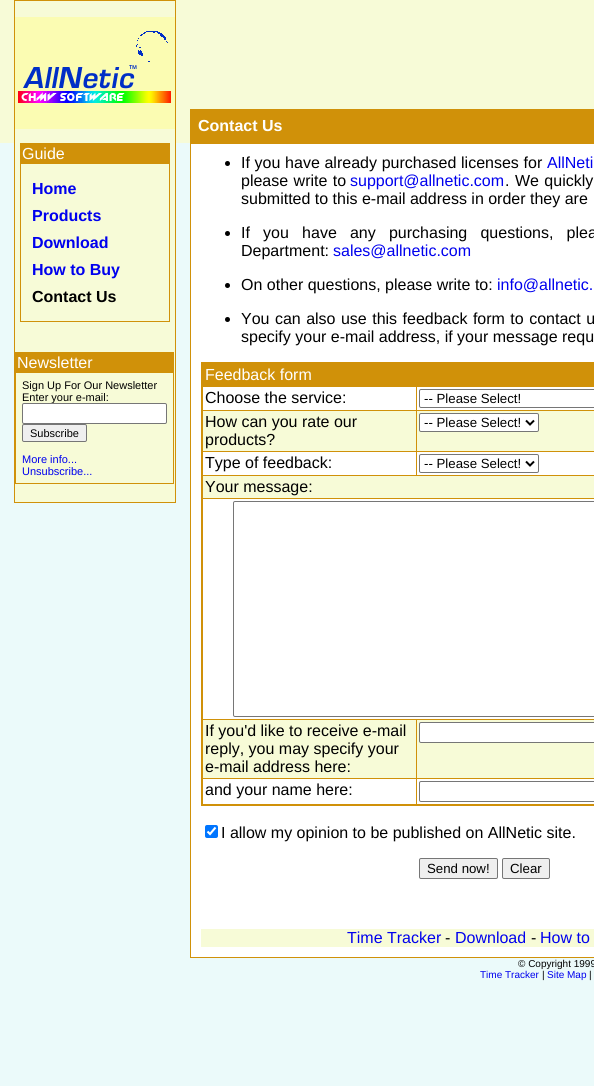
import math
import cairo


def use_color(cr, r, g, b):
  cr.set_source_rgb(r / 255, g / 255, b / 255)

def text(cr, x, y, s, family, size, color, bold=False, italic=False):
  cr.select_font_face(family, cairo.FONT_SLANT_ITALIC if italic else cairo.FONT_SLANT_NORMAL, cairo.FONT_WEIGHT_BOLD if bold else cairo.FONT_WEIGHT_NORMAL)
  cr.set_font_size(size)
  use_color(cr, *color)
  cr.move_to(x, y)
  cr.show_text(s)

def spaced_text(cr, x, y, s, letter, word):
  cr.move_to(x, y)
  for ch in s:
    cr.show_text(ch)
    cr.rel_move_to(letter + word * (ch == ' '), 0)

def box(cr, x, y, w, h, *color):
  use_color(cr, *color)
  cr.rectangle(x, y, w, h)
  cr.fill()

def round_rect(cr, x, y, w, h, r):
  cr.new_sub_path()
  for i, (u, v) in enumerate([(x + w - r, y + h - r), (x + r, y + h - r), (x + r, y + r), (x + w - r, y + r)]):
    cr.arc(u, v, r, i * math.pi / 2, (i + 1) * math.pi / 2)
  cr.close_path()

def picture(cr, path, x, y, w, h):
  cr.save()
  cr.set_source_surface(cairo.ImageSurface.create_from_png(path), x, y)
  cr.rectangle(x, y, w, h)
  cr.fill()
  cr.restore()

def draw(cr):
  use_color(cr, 235, 250, 250)
  cr.paint()
  box(cr, 0, 0, 14, 143, 247, 251, 215)
  box(cr, 176, 0, 14, 143, 247, 251, 215)
  box(cr, 190, 0, 404, 109, 247, 251, 215)
  box(cr, 14, 0, 162, 1, 208, 145, 9)
  box(cr, 14, 1, 1, 501, 208, 145, 9)
  box(cr, 15, 1, 160, 16, 247, 251, 215)
  box(cr, 175, 1, 1, 501, 208, 145, 9)
  box(cr, 15, 17, 160, 112, 251, 252, 178)
  picture(cr, "img_01.png", 136, 31, 32, 31)
  picture(cr, "img_02.png", 18, 65, 153, 38)
  box(cr, 190, 109, 404, 849, 208, 145, 9)
  box(cr, 15, 129, 160, 373, 247, 251, 215)
  box(cr, 20, 143, 150, 179, 208, 145, 9)
  box(cr, 21, 164, 148, 157, 247, 251, 215)
  box(cr, 15, 352, 159, 132, 208, 145, 9)
  box(cr, 16, 373, 157, 110, 247, 251, 215)
  use_color(cr, 239, 239, 239)
  round_rect(cr, 22.5, 424.5, 64, 17, 1.5)
  cr.fill_preserve()
  use_color(cr, 118, 118, 118)
  cr.set_line_width(1)
  cr.stroke()
  box(cr, 14, 502, 162, 1, 208, 145, 9)
  box(cr, 191, 144, 403, 813, 255, 255, 255)
  use_color(cr, 0, 0, 0)
  cr.arc(227.5, 163.5, 2.5, 0, 2 * math.pi)
  cr.fill()
  cr.arc(227.5, 233.5, 2.5, 0, 2 * math.pi)
  cr.fill()
  cr.arc(227.5, 285.5, 2.5, 0, 2 * math.pi)
  cr.fill()
  cr.arc(227.5, 319.5, 2.5, 0, 2 * math.pi)
  cr.fill()
  box(cr, 201, 362, 393, 444, 208, 145, 9)
  box(cr, 203, 387, 213, 23, 255, 255, 255)
  box(cr, 417, 387, 177, 23, 255, 255, 255)
  round_rect(cr, 419.5, 389.5, 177, 18, 1.5)
  use_color(cr, 118, 118, 118)
  cr.stroke()
  box(cr, 203, 411, 213, 40, 247, 251, 215)
  box(cr, 417, 411, 177, 40, 247, 251, 215)
  use_color(cr, 255, 255, 255)
  round_rect(cr, 419.5, 413.5, 119, 18, 1.5)
  cr.fill_preserve()
  use_color(cr, 118, 118, 118)
  cr.stroke()
  cr.new_path()
  cr.move_to(526, 420.5)
  cr.line_to(530, 424.5)
  cr.line_to(534, 420.5)
  use_color(cr, 0, 0, 0)
  cr.set_line_width(2)
  cr.stroke()
  box(cr, 203, 452, 213, 23, 255, 255, 255)
  box(cr, 417, 452, 177, 23, 255, 255, 255)
  round_rect(cr, 419.5, 454.5, 119, 18, 1.5)
  use_color(cr, 118, 118, 118)
  cr.set_line_width(1)
  cr.stroke()
  cr.new_path()
  cr.move_to(526, 461.5)
  cr.line_to(530, 465.5)
  cr.line_to(534, 461.5)
  use_color(cr, 0, 0, 0)
  cr.set_line_width(2)
  cr.stroke()
  box(cr, 203, 476, 391, 22, 247, 251, 215)
  box(cr, 203, 499, 391, 220, 255, 255, 255)
  round_rect(cr, 233.5, 501.5, 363, 215, 1.5)
  use_color(cr, 118, 118, 118)
  cr.set_line_width(1)
  cr.stroke()
  box(cr, 203, 720, 213, 58, 247, 251, 215)
  box(cr, 417, 720, 177, 58, 247, 251, 215)
  use_color(cr, 255, 255, 255)
  round_rect(cr, 419.5, 722.5, 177, 20, 1.5)
  cr.fill_preserve()
  use_color(cr, 118, 118, 118)
  cr.stroke()
  box(cr, 203, 779, 213, 25, 255, 255, 255)
  box(cr, 417, 779, 177, 25, 255, 255, 255)
  round_rect(cr, 419.5, 781.5, 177, 20, 1.5)
  use_color(cr, 118, 118, 118)
  cr.stroke()
  use_color(cr, 0, 117, 255)
  round_rect(cr, 205, 825, 13, 13, 2)
  cr.fill()
  cr.new_path()
  cr.move_to(207.5, 831.5)
  cr.line_to(210, 834)
  cr.line_to(215.5, 827.5)
  use_color(cr, 255, 255, 255)
  cr.set_line_width(2.1)
  cr.stroke()
  use_color(cr, 239, 239, 239)
  round_rect(cr, 419.5, 858.5, 78, 20, 1.5)
  cr.fill_preserve()
  use_color(cr, 118, 118, 118)
  cr.set_line_width(1)
  cr.stroke()
  use_color(cr, 239, 239, 239)
  round_rect(cr, 502.5, 858.5, 47, 20, 1.5)
  cr.fill_preserve()
  use_color(cr, 118, 118, 118)
  cr.stroke()
  box(cr, 201, 929, 393, 18, 247, 251, 215)
  text(cr, 198, 131, "Contact Us", "Liberation Sans", 16, (255, 255, 255), bold=True)
  text(cr, 22, 159, "Guide", "Liberation Sans", 16, (255, 255, 255))
  text(cr, 32, 194, "Home", "Liberation Sans", 16, (0, 0, 238), bold=True)
  text(cr, 32, 221, "Products", "Liberation Sans", 16, (0, 0, 238), bold=True)
  text(cr, 32, 248, "Download", "Liberation Sans", 16, (0, 0, 238), bold=True)
  text(cr, 32, 275, "How to Buy", "Liberation Sans", 16, (0, 0, 238), bold=True)
  text(cr, 32, 302, "Contact Us", "Liberation Sans", 16, (0, 0, 0), bold=True)
  text(cr, 17, 368, "Newsletter", "Liberation Sans", 16, (255, 255, 255))
  text(cr, 22, 389, "Sign Up For Our Newsletter", "Liberation Sans", 11, (0, 0, 0))
  text(cr, 22, 401, "Enter your e-mail:", "Liberation Sans", 11, (0, 0, 0))
  use_color(cr, 255, 255, 255)
  round_rect(cr, 22.5, 403.5, 144, 20, 1.5)
  cr.fill_preserve()
  use_color(cr, 118, 118, 118)
  cr.stroke()
  text(cr, 30, 437, "Subscribe", "Liberation Sans", 11, (0, 0, 0))
  text(cr, 22, 463, "More info...", "Liberation Sans", 11, (0, 0, 238))
  text(cr, 22, 475, "Unsubscribe...", "Liberation Sans", 11, (0, 0, 238))
  cr.set_font_size(16)
  use_color(cr, 0, 0, 0)
  spaced_text(cr, 241, 168, "If you have already purchased licenses for", 0, 0.25)
  use_color(cr, 0, 0, 238)
  spaced_text(cr, 547, 168, "AllNeti", 0, 0.25)
  use_color(cr, 0, 0, 0)
  spaced_text(cr, 241, 186, "please write to", 0, 1)
  text(cr, 350, 186, "support@allnetic.com", "Liberation Sans", 16, (0, 0, 238))
  use_color(cr, 0, 0, 0)
  spaced_text(cr, 505, 186, ". We quickly", 0, 1)
  text(cr, 241, 204, "submitted to this e-mail address in order they are", "Liberation Sans", 16, (0, 0, 0))
  spaced_text(cr, 241, 238, "If you have any purchasing questions, plea", 0, 8.75)
  text(cr, 241, 256, "Department:", "Liberation Sans", 16, (0, 0, 0))
  text(cr, 333, 256, "sales@allnetic.com", "Liberation Sans", 16, (0, 0, 238))
  text(cr, 241, 290, "On other questions, please write to:", "Liberation Sans", 16, (0, 0, 0))
  text(cr, 497, 290, "info@allnetic.", "Liberation Sans", 16, (0, 0, 238))
  use_color(cr, 0, 0, 0)
  spaced_text(cr, 241, 324, "You can also use this feedback form to contact u", 0, 1)
  text(cr, 241, 342, "specify your e-mail address, if your message requ", "Liberation Sans", 16, (0, 0, 0))
  text(cr, 205, 380, "Feedback form", "Liberation Sans", 16, (255, 255, 255))
  text(cr, 205, 403, "Choose the service:", "Liberation Sans", 16, (0, 0, 0))
  text(cr, 424, 403, "-- Please Select!", "Liberation Sans", 13.25, (0, 0, 0))
  text(cr, 205, 427, "How can you rate our", "Liberation Sans", 16, (0, 0, 0))
  text(cr, 205, 445, "products?", "Liberation Sans", 16, (0, 0, 0))
  text(cr, 424, 427, "-- Please Select!", "Liberation Sans", 13.25, (0, 0, 0))
  text(cr, 205, 468, "Type of feedback:", "Liberation Sans", 16, (0, 0, 0))
  text(cr, 424, 468, "-- Please Select!", "Liberation Sans", 13.25, (0, 0, 0))
  text(cr, 205, 492, "Your message:", "Liberation Sans", 16, (0, 0, 0))
  text(cr, 205, 736, "If you'd like to receive e-mail", "Liberation Sans", 16, (0, 0, 0))
  text(cr, 205, 754, "reply, you may specify your", "Liberation Sans", 16, (0, 0, 0))
  text(cr, 205, 772, "e-mail address here:", "Liberation Sans", 16, (0, 0, 0))
  text(cr, 205, 795, "and your name here:", "Liberation Sans", 16, (0, 0, 0))
  text(cr, 221, 838, "I allow my opinion to be published on AllNetic site.", "Liberation Sans", 16, (0, 0, 0))
  text(cr, 427, 873, "Send now!", "Liberation Sans", 13.25, (0, 0, 0))
  text(cr, 510, 873, "Clear", "Liberation Sans", 13.25, (0, 0, 0))
  text(cr, 347, 943, "Time Tracker", "Liberation Sans", 16, (0, 0, 238))
  text(cr, 445, 943, "-", "Liberation Sans", 16, (0, 0, 0))
  text(cr, 455, 943, "Download", "Liberation Sans", 16, (0, 0, 238))
  text(cr, 531, 943, "-", "Liberation Sans", 16, (0, 0, 0))
  text(cr, 540, 943, "How to", "Liberation Sans", 16, (0, 0, 238))
  text(cr, 518, 967, "© Copyright 1999", "Liberation Sans", 10, (0, 0, 0))
  text(cr, 480, 978, "Time Tracker", "Liberation Sans", 10, (0, 0, 238))
  text(cr, 542, 978, "|", "Liberation Sans", 10, (0, 0, 0))
  text(cr, 547, 978, "Site Map", "Liberation Sans", 10, (0, 0, 238))
  text(cr, 589, 978, "|", "Liberation Sans", 10, (0, 0, 0))


surface = cairo.ImageSurface(cairo.FORMAT_RGB24, 594, 1086)
cr = cairo.Context(surface)
options = cairo.FontOptions()
options.set_hint_metrics(cairo.HINT_METRICS_OFF)
options.set_hint_style(cairo.HINT_STYLE_NONE)
cr.set_font_options(options)
cr.set_miter_limit(4)
draw(cr)
surface.write_to_png("out.png")
